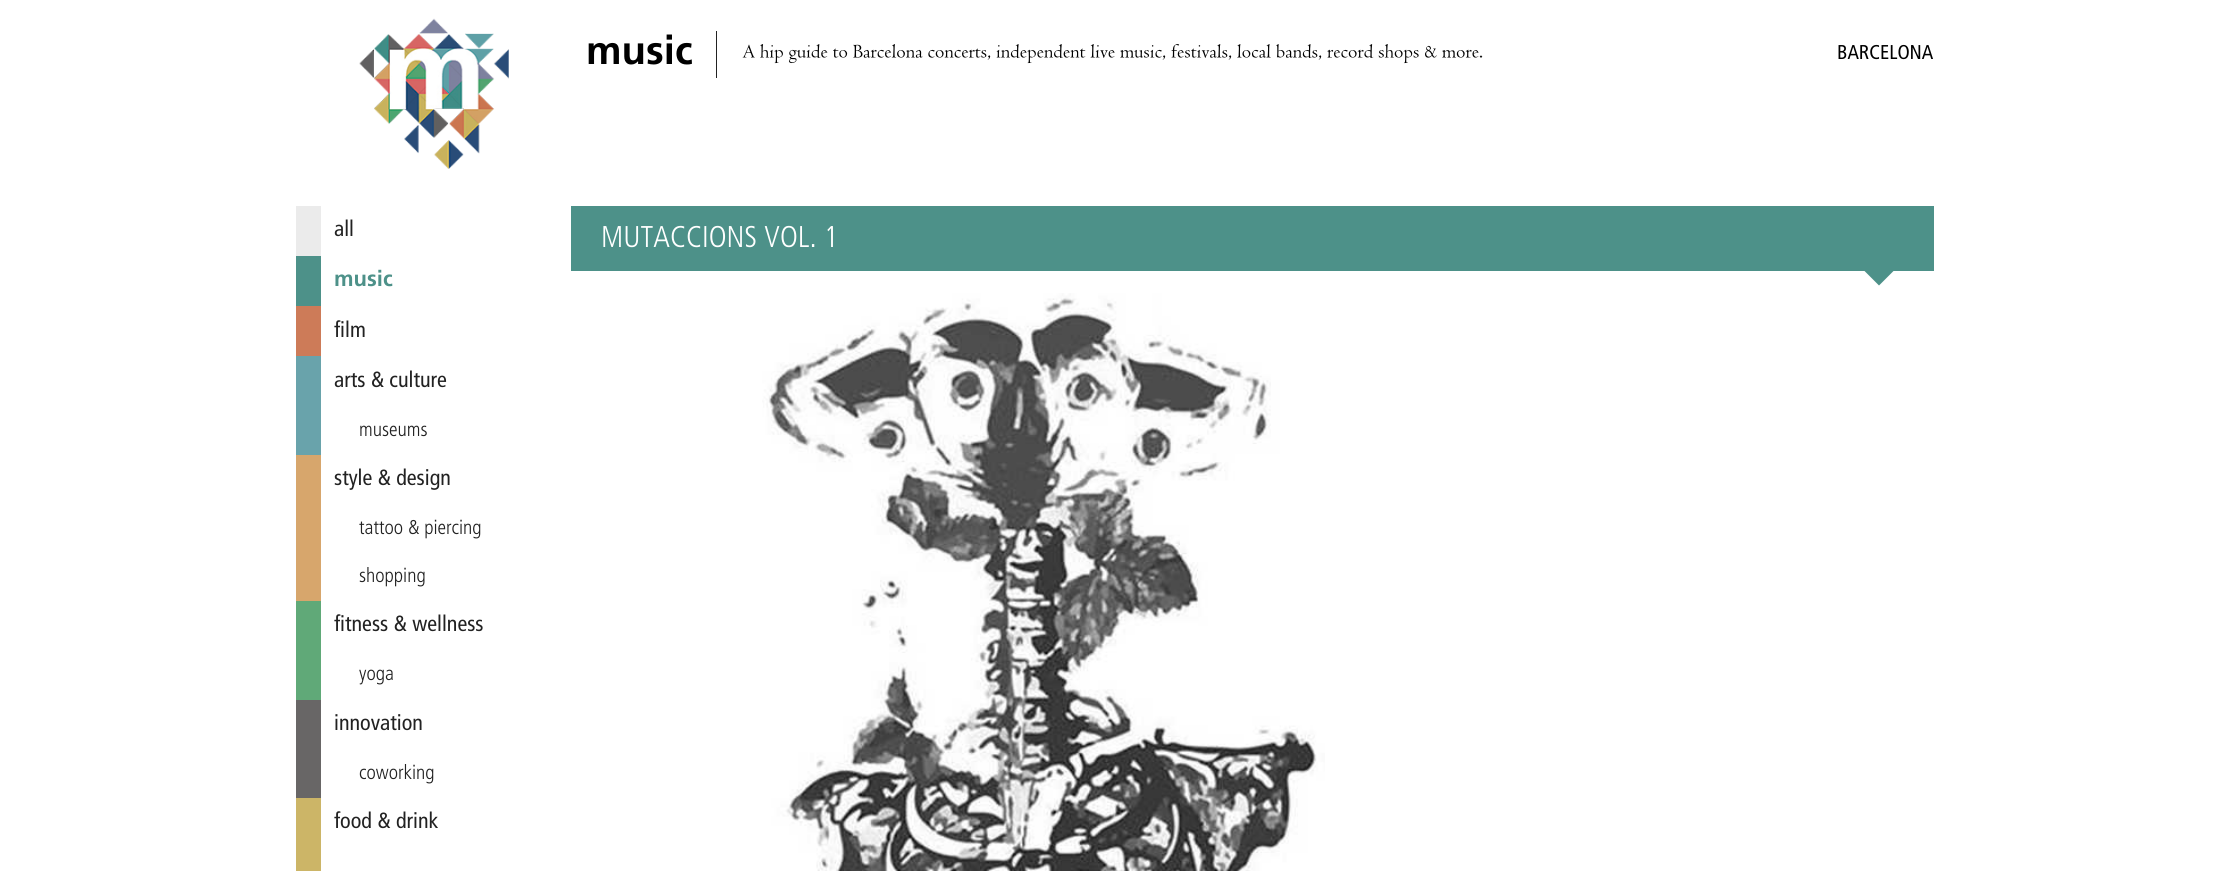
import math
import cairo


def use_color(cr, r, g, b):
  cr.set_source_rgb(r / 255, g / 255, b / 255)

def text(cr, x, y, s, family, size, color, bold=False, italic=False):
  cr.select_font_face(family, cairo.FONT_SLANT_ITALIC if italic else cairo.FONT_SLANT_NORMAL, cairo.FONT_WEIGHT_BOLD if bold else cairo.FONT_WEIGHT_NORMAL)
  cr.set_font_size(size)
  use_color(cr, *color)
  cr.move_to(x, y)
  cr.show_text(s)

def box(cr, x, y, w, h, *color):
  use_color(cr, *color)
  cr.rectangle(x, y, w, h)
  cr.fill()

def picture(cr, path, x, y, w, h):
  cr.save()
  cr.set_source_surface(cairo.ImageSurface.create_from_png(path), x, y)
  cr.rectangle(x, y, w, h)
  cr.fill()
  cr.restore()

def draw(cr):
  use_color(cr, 255, 255, 255)
  cr.paint()
  picture(cr, "img_01.png", 359, 18, 150, 151)
  box(cr, 716, 31, 1, 47, 34, 34, 34)
  picture(cr, "img_02.png", 742, 44, 741, 20)
  box(cr, 296, 206, 25, 50, 235, 235, 235)
  box(cr, 296, 256, 25, 50, 77, 145, 137)
  box(cr, 296, 306, 25, 50, 205, 123, 88)
  box(cr, 296, 356, 25, 99, 105, 163, 171)
  box(cr, 296, 455, 25, 146, 215, 166, 108)
  box(cr, 296, 601, 25, 99, 96, 169, 120)
  box(cr, 296, 700, 25, 98, 104, 102, 102)
  box(cr, 296, 798, 25, 73, 204, 181, 103)
  box(cr, 571, 206, 1363, 65, 77, 145, 137)
  cr.new_path()
  cr.move_to(1864, 270.5)
  cr.line_to(1894, 270.5)
  cr.line_to(1879, 285.5)
  cr.close_path()
  cr.fill()
  picture(cr, "img_03.png", 762, 293, 563, 578)
  text(cr, 586, 64, "music", "Frutiger", 40, (0, 0, 0), bold=True)
  text(cr, 1837, 59, "BARCELONA", "Frutiger", 20, (0, 0, 0))
  text(cr, 334, 236, "all", "Frutiger", 22, (34, 34, 34))
  text(cr, 334, 286, "music", "Frutiger", 22, (77, 145, 137), bold=True)
  text(cr, 334, 337, "film", "Frutiger", 22, (34, 34, 34))
  text(cr, 334, 387, "arts & culture", "Frutiger", 22, (34, 34, 34))
  text(cr, 359, 436, "museums", "Frutiger Light", 20, (34, 34, 34))
  text(cr, 334, 485, "style & design", "Frutiger", 22, (34, 34, 34))
  text(cr, 359, 534, "tattoo & piercing", "Frutiger Light", 20, (34, 34, 34))
  text(cr, 359, 582, "shopping", "Frutiger Light", 20, (34, 34, 34))
  text(cr, 334, 631, "fitness & wellness", "Frutiger", 22, (34, 34, 34))
  text(cr, 359, 680, "yoga", "Frutiger Light", 20, (34, 34, 34))
  text(cr, 334, 730, "innovation", "Frutiger", 22, (34, 34, 34))
  text(cr, 359, 779, "coworking", "Frutiger Light", 20, (34, 34, 34))
  text(cr, 334, 828, "food & drink", "Frutiger", 22, (34, 34, 34))
  text(cr, 601, 247, "MUTACCIONS VOL. 1", "Frutiger Light", 30, (255, 255, 255))


surface = cairo.ImageSurface(cairo.FORMAT_RGB24, 2229, 871)
cr = cairo.Context(surface)
options = cairo.FontOptions()
options.set_hint_metrics(cairo.HINT_METRICS_OFF)
options.set_hint_style(cairo.HINT_STYLE_NONE)
cr.set_font_options(options)
cr.set_miter_limit(4)
draw(cr)
surface.write_to_png("out.png")
